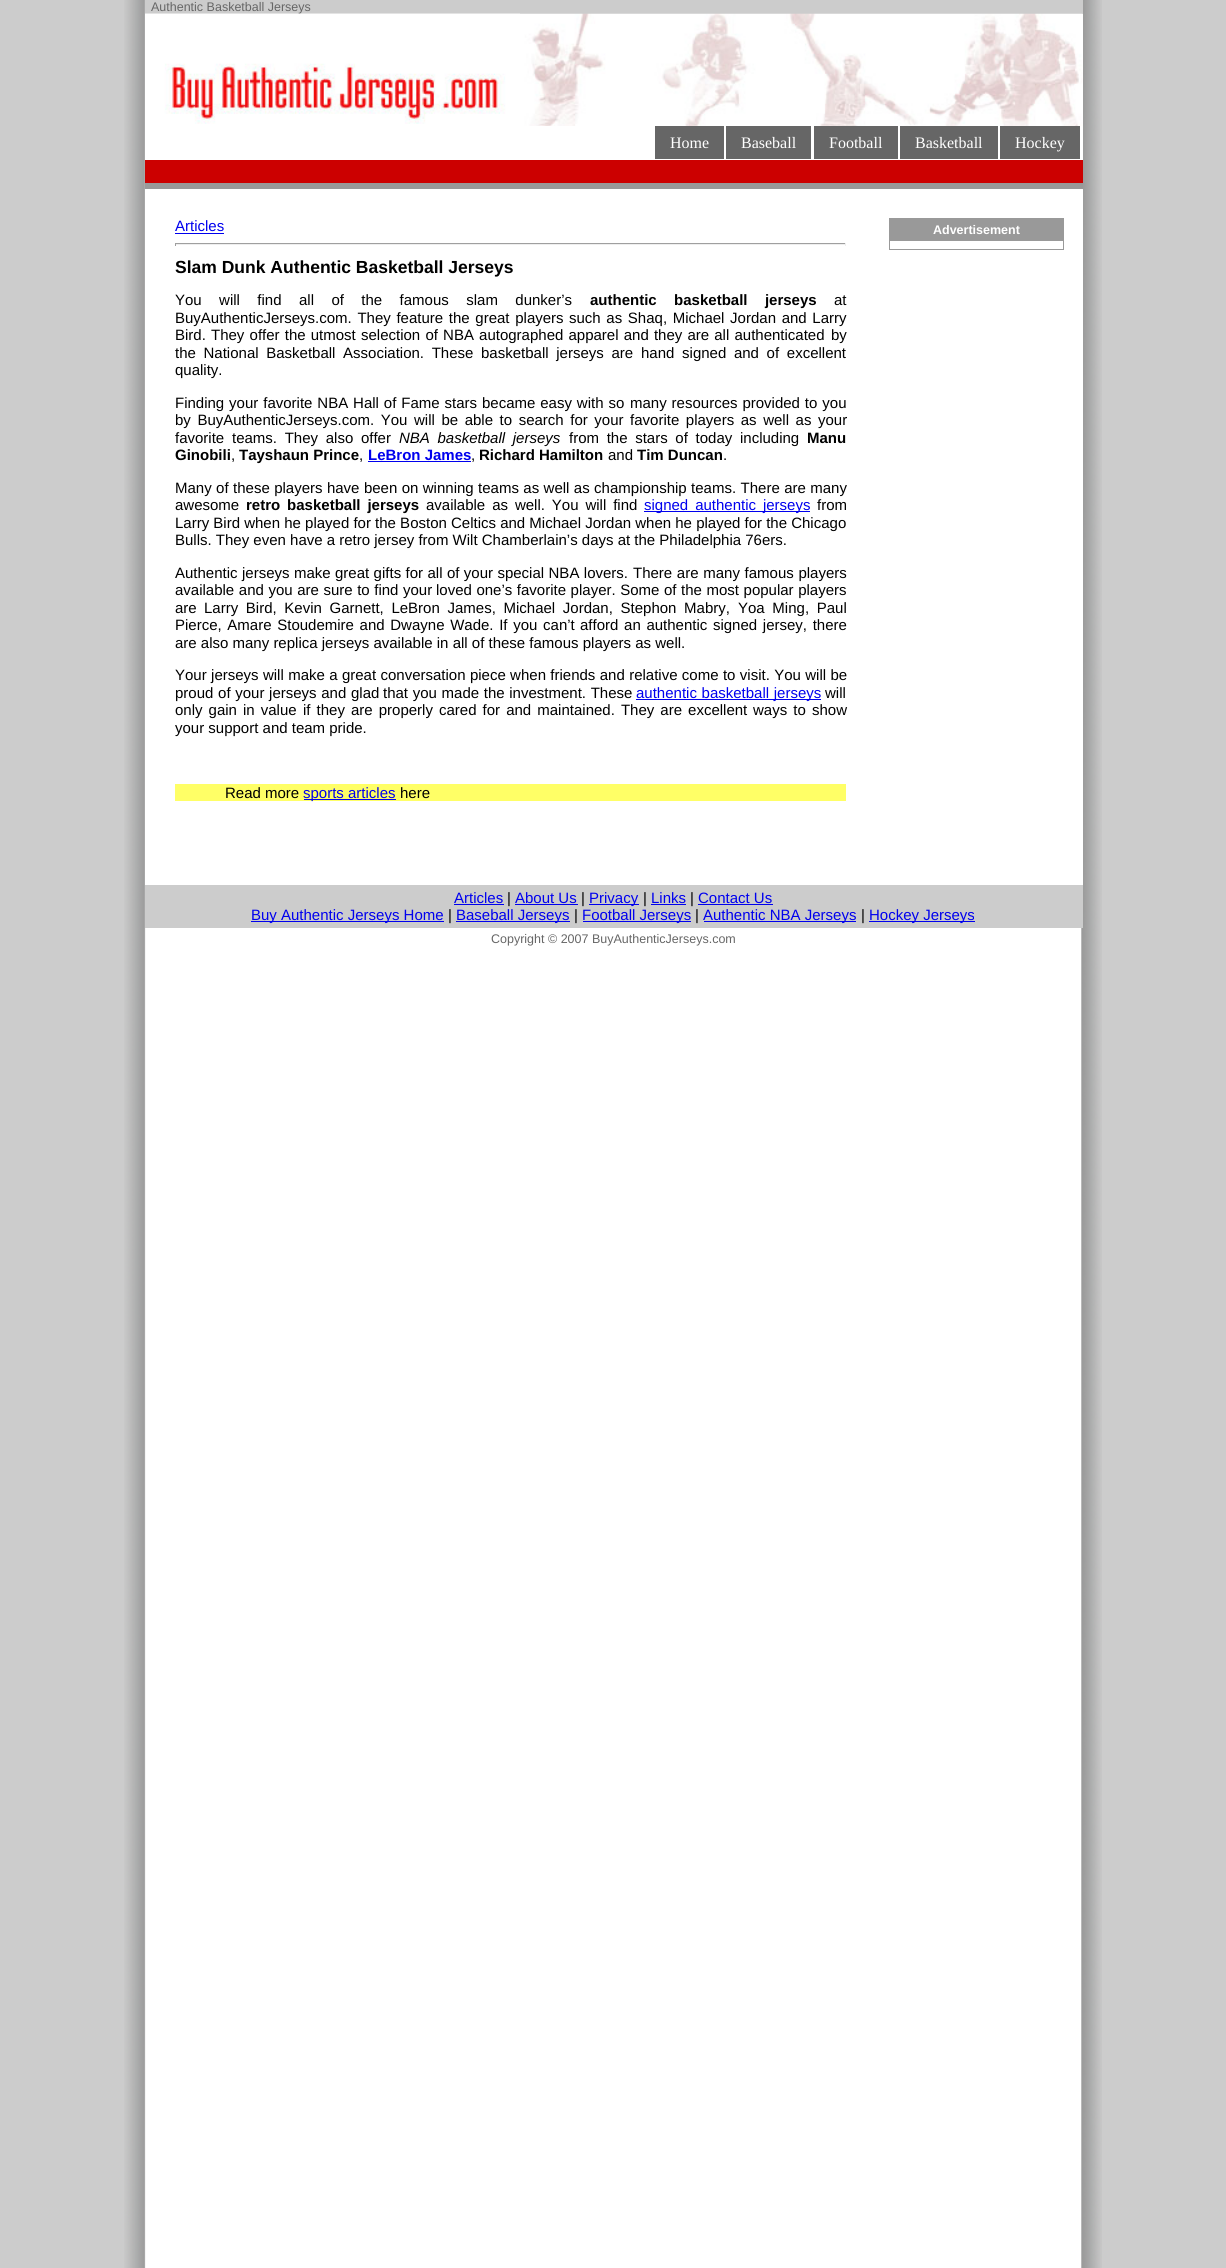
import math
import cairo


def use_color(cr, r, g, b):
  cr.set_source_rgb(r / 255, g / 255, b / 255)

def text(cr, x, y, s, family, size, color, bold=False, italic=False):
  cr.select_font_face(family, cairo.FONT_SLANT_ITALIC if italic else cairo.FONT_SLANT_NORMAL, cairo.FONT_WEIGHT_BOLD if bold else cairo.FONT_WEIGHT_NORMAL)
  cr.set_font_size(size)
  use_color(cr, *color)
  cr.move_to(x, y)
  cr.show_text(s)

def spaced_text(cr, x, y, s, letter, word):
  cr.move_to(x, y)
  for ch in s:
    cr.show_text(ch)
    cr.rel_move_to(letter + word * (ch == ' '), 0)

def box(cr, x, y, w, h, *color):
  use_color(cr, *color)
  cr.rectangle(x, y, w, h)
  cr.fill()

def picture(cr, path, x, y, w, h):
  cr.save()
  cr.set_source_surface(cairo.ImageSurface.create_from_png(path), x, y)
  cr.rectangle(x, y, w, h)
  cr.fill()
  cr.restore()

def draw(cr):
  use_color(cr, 204, 204, 204)
  cr.paint()
  picture(cr, "img_01.png", 124, 0, 978, 2268)
  box(cr, 145, 0, 938, 14, 204, 204, 204)
  box(cr, 1082, 14, 1, 112, 255, 255, 255)
  picture(cr, "img_02.png", 145, 13, 938, 113)
  box(cr, 145, 126, 938, 34, 255, 255, 255)
  box(cr, 655, 126, 69, 33, 102, 102, 102)
  box(cr, 726, 126, 85, 33, 102, 102, 102)
  box(cr, 814, 126, 84, 33, 102, 102, 102)
  box(cr, 900, 126, 98, 33, 102, 102, 102)
  box(cr, 1000, 126, 80, 33, 102, 102, 102)
  box(cr, 145, 160, 938, 23, 204, 0, 0)
  box(cr, 145, 183, 938, 6, 153, 153, 153)
  box(cr, 145, 189, 938, 696, 255, 255, 255)
  box(cr, 175, 233, 49, 1, 0, 0, 238)
  box(cr, 175, 243, 671, 1, 159, 159, 159)
  box(cr, 845, 243, 1, 3, 238, 238, 238)
  box(cr, 175, 244, 671, 1, 238, 238, 238)
  box(cr, 175, 243, 1, 3, 159, 159, 159)
  box(cr, 368, 461, 103, 1, 0, 0, 238)
  box(cr, 644, 511, 166, 1, 0, 0, 238)
  box(cr, 636, 699, 185, 1, 0, 0, 238)
  box(cr, 175, 784, 671, 17, 255, 255, 102)
  box(cr, 304, 799, 92, 1, 0, 0, 238)
  box(cr, 889, 218, 175, 32, 153, 153, 153)
  box(cr, 890, 241, 173, 8, 255, 255, 255)
  box(cr, 145, 885, 938, 43, 204, 204, 204)
  box(cr, 454, 904, 50, 1, 0, 0, 238)
  box(cr, 515, 904, 63, 1, 0, 0, 238)
  box(cr, 589, 904, 50, 1, 0, 0, 238)
  box(cr, 651, 904, 35, 1, 0, 0, 238)
  box(cr, 698, 904, 75, 1, 0, 0, 238)
  box(cr, 251, 921, 193, 1, 0, 0, 238)
  box(cr, 456, 921, 114, 1, 0, 0, 238)
  box(cr, 583, 921, 108, 1, 0, 0, 238)
  box(cr, 704, 921, 152, 1, 0, 0, 238)
  box(cr, 869, 921, 106, 1, 0, 0, 238)
  text(cr, 151, 11, "Authentic Basketball Jerseys", "Liberation Sans", 12.5, (102, 102, 102))
  picture(cr, "img_03.png", 145, 13, 375, 111)
  text(cr, 670, 148, "Home", "Liberation Serif", 16, (255, 255, 255))
  text(cr, 741, 148, "Baseball", "Liberation Serif", 16, (255, 255, 255))
  text(cr, 829, 148, "Football", "Liberation Serif", 16, (255, 255, 255))
  text(cr, 915, 148, "Basketball", "Liberation Serif", 16, (255, 255, 255))
  text(cr, 1015, 148, "Hockey", "Liberation Serif", 16, (255, 255, 255))
  text(cr, 175, 231, "Articles", "Liberation Sans", 15, (0, 0, 238))
  text(cr, 175, 273, "Slam Dunk Authentic Basketball Jerseys", "Liberation Sans", 17.5, (0, 0, 0), bold=True)
  cr.select_font_face("Liberation Sans")
  cr.set_font_size(15)
  spaced_text(cr, 175, 305, "You will find all of the famous slam dunker’s", 0, 13.25)
  cr.select_font_face("Liberation Sans", cairo.FONT_SLANT_NORMAL, cairo.FONT_WEIGHT_BOLD)
  spaced_text(cr, 590, 305, "authentic basketball jerseys", 0, 13.25)
  text(cr, 834, 305, "at", "Liberation Sans", 15, (0, 0, 0))
  spaced_text(cr, 175, 323, "BuyAuthenticJerseys.com. They feature the great players", 0, 1.5)
  spaced_text(cr, 569, 323, "such as Shaq, Michael Jordan and Larry", 0, 1.5)
  spaced_text(cr, 175, 340, "Bird. They offer the utmost", 0, 1)
  spaced_text(cr, 361, 340, "selection of NBA autographed apparel and they are all authenticated", 0, 1)
  text(cr, 831, 340, "by", "Liberation Sans", 15, (0, 0, 0))
  spaced_text(cr, 175, 358, "the National Basketball Association. These basketball jerseys are", 0, 3.5)
  spaced_text(cr, 641, 358, "hand signed and of excellent", 0, 3.5)
  text(cr, 175, 375, "quality.", "Liberation Sans", 15, (0, 0, 0))
  spaced_text(cr, 175, 408, "Finding your favorite NBA Hall of Fame stars became easy with so", 0, 0.75)
  spaced_text(cr, 630, 408, "many resources provided to you", 0, 0.75)
  spaced_text(cr, 175, 425, "by BuyAuthenticJerseys.com. You", 0, 2.4)
  spaced_text(cr, 414, 425, "will be able to search for your favorite players as well as your", 0, 2.4)
  text(cr, 175, 443, "favorite", "Liberation Sans", 15, (0, 0, 0))
  spaced_text(cr, 232, 443, "teams. They also offer", 0, 3.5)
  cr.select_font_face("Liberation Sans", cairo.FONT_SLANT_ITALIC)
  spaced_text(cr, 399, 443, "NBA basketball jerseys", 0, 3.5)
  cr.select_font_face("Liberation Sans")
  spaced_text(cr, 569, 443, "from the stars of today", 0, 3.5)
  text(cr, 740, 443, "including", "Liberation Sans", 15, (0, 0, 0))
  text(cr, 807, 443, "Manu", "Liberation Sans", 15, (0, 0, 0), bold=True)
  text(cr, 175, 460, "Ginobili", "Liberation Sans", 15, (0, 0, 0), bold=True)
  text(cr, 231, 460, ",", "Liberation Sans", 15, (0, 0, 0))
  text(cr, 239, 460, "Tayshaun Prince", "Liberation Sans", 15, (0, 0, 0), bold=True)
  text(cr, 359, 460, ",", "Liberation Sans", 15, (0, 0, 0))
  text(cr, 368, 460, "LeBron James", "Liberation Sans", 15, (0, 0, 238), bold=True)
  text(cr, 471, 460, ",", "Liberation Sans", 15, (0, 0, 0))
  text(cr, 479, 460, "Richard Hamilton", "Liberation Sans", 15, (0, 0, 0), bold=True)
  text(cr, 608, 460, "and", "Liberation Sans", 15, (0, 0, 0))
  text(cr, 637, 460, "Tim Duncan", "Liberation Sans", 15, (0, 0, 0), bold=True)
  text(cr, 723, 460, ".", "Liberation Sans", 15, (0, 0, 0))
  spaced_text(cr, 175, 493, "Many of these players have been on winning teams as well as championship teams. There are many", 0, 0.25)
  text(cr, 175, 510, "awesome", "Liberation Sans", 15, (0, 0, 0))
  cr.select_font_face("Liberation Sans", cairo.FONT_SLANT_NORMAL, cairo.FONT_WEIGHT_BOLD)
  spaced_text(cr, 246, 510, "retro basketball jerseys", 0, 2.75)
  cr.select_font_face("Liberation Sans")
  spaced_text(cr, 426, 510, "available as well. You will find", 0, 2.75)
  use_color(cr, 0, 0, 238)
  spaced_text(cr, 644, 510, "signed authentic jerseys", 0, 2.75)
  text(cr, 817, 510, "from", "Liberation Sans", 15, (0, 0, 0))
  text(cr, 175, 528, "Larry Bird when he played for the Boston Celtics and Michael Jordan when he played for the Chicago", "Liberation Sans", 15, (0, 0, 0))
  text(cr, 175, 545, "Bulls. They even have a retro jersey from Wilt Chamberlain’s days at the Philadelphia 76ers.", "Liberation Sans", 15, (0, 0, 0))
  spaced_text(cr, 175, 578, "Authentic jerseys make great gifts for all of your special NBA lovers.", 0, 0.25)
  spaced_text(cr, 633, 578, "There are many famous players", 0, 0.5)
  spaced_text(cr, 175, 595, "available and you are sure to find your", 0, 0.4)
  spaced_text(cr, 436, 595, "loved one’s favorite player. Some of the most popular players", 0, 0.4)
  text(cr, 175, 613, "are", "Liberation Sans", 15, (0, 0, 0))
  spaced_text(cr, 204, 613, "Larry Bird, Kevin Garnett, LeBron James, Michael Jordan, Stephon Mabry,", 0, 3.5)
  spaced_text(cr, 738, 613, "Yoa Ming, Paul", 0, 3.5)
  spaced_text(cr, 175, 630, "Pierce, Amare Stoudemire and Dwayne Wade. If you can’t", 0, 1.5)
  spaced_text(cr, 580, 630, "afford an authentic signed jersey, there", 0, 1.5)
  text(cr, 175, 648, "are also many replica jerseys available in all of these famous players as well.", "Liberation Sans", 15, (0, 0, 0))
  spaced_text(cr, 175, 680, "Your jerseys will make a great conversation piece when friends and relative come to visit. You will be", 0, 0.2)
  spaced_text(cr, 175, 698, "proud of your jerseys and glad", 0, 0.5)
  spaced_text(cr, 383, 698, "that you made the investment. These", 0, 0.5)
  use_color(cr, 0, 0, 238)
  spaced_text(cr, 636, 698, "authentic basketball jerseys", 0, 0.5)
  text(cr, 825, 698, "will", "Liberation Sans", 15, (0, 0, 0))
  spaced_text(cr, 175, 715, "only gain in value", 0, 1.9)
  spaced_text(cr, 303, 715, "if they are properly cared for and maintained. They are excellent", 0, 1.9)
  spaced_text(cr, 753, 715, "ways to show", 0, 2)
  text(cr, 175, 733, "your support and team pride.", "Liberation Sans", 15, (0, 0, 0))
  text(cr, 225, 798, "Read more", "Liberation Sans", 15, (0, 0, 0))
  text(cr, 303, 798, "sports articles", "Liberation Sans", 15, (0, 0, 238))
  text(cr, 400, 798, "here", "Liberation Sans", 15, (0, 0, 0))
  text(cr, 933, 234, "Advertisement", "Liberation Sans", 12.5, (255, 255, 255), bold=True)
  text(cr, 454, 903, "Articles", "Liberation Sans", 15, (0, 0, 238))
  text(cr, 507, 903, "|", "Liberation Sans", 15, (0, 0, 0))
  text(cr, 515, 903, "About Us", "Liberation Sans", 15, (0, 0, 238))
  text(cr, 581, 903, "|", "Liberation Sans", 15, (0, 0, 0))
  text(cr, 589, 903, "Privacy", "Liberation Sans", 15, (0, 0, 238))
  text(cr, 643, 903, "|", "Liberation Sans", 15, (0, 0, 0))
  text(cr, 651, 903, "Links", "Liberation Sans", 15, (0, 0, 238))
  text(cr, 690, 903, "|", "Liberation Sans", 15, (0, 0, 0))
  text(cr, 698, 903, "Contact Us", "Liberation Sans", 15, (0, 0, 238))
  text(cr, 251, 920, "Buy Authentic Jerseys Home", "Liberation Sans", 15, (0, 0, 238))
  text(cr, 448, 920, "|", "Liberation Sans", 15, (0, 0, 0))
  text(cr, 456, 920, "Baseball Jerseys", "Liberation Sans", 15, (0, 0, 238))
  text(cr, 574, 920, "|", "Liberation Sans", 15, (0, 0, 0))
  text(cr, 582, 920, "Football Jerseys", "Liberation Sans", 15, (0, 0, 238))
  text(cr, 695, 920, "|", "Liberation Sans", 15, (0, 0, 0))
  text(cr, 703, 920, "Authentic NBA Jerseys", "Liberation Sans", 15, (0, 0, 238))
  text(cr, 861, 920, "|", "Liberation Sans", 15, (0, 0, 0))
  text(cr, 869, 920, "Hockey Jerseys", "Liberation Sans", 15, (0, 0, 238))
  text(cr, 491, 943, "Copyright © 2007 BuyAuthenticJerseys.com", "Liberation Sans", 12.5, (102, 102, 102))


surface = cairo.ImageSurface(cairo.FORMAT_RGB24, 1226, 2268)
cr = cairo.Context(surface)
options = cairo.FontOptions()
options.set_hint_metrics(cairo.HINT_METRICS_OFF)
options.set_hint_style(cairo.HINT_STYLE_NONE)
cr.set_font_options(options)
cr.set_miter_limit(4)
draw(cr)
surface.write_to_png("out.png")
